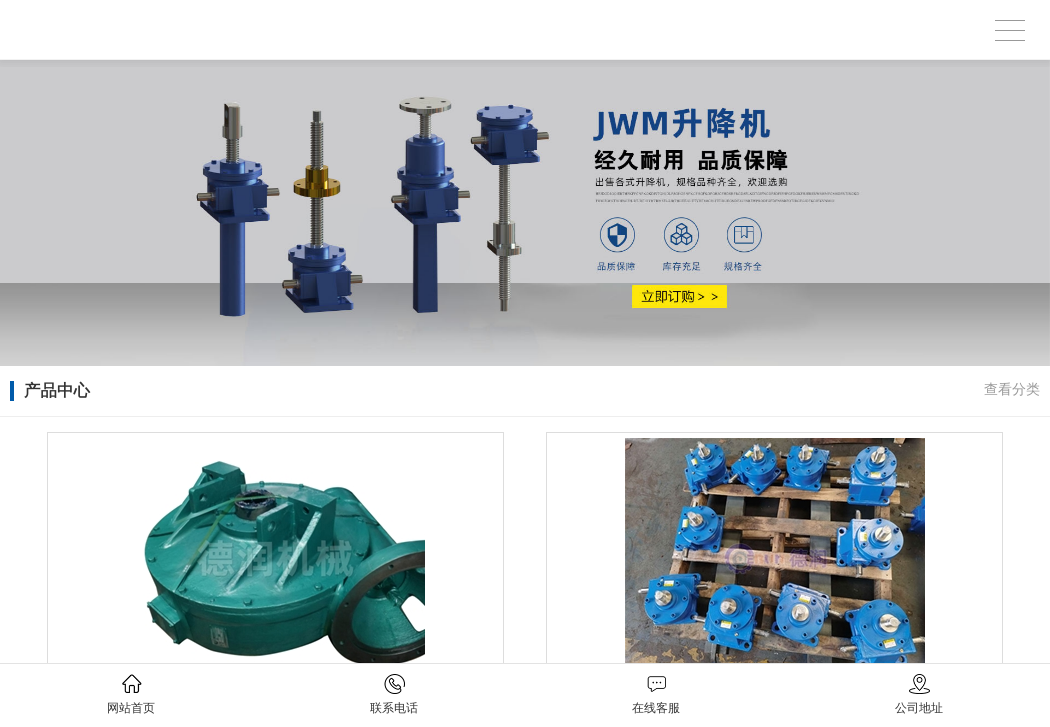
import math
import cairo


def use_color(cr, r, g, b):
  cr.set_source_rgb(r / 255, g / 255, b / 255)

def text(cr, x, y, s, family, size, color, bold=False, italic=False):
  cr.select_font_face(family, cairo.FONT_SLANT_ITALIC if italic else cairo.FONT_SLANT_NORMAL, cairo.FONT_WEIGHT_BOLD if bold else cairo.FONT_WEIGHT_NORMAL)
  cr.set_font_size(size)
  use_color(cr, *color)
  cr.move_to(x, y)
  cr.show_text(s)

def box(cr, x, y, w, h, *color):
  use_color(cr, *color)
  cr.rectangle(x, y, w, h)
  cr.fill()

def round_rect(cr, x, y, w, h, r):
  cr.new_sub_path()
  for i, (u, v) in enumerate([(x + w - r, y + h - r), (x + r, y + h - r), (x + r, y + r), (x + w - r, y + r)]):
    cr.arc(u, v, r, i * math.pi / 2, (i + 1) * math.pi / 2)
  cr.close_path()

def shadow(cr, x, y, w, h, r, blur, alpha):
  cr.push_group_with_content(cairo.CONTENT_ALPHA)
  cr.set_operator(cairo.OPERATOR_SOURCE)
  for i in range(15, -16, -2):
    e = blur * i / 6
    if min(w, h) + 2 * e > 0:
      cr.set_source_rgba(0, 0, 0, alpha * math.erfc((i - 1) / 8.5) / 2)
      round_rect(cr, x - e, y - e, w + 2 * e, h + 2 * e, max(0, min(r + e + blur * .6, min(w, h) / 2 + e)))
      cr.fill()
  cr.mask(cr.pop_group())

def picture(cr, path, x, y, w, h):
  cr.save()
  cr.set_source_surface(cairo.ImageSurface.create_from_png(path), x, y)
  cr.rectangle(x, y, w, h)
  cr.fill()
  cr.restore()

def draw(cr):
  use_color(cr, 255, 255, 255)
  cr.paint()
  picture(cr, "img_01.png", 0, 60, 1050, 306)
  cr.save()
  cr.rectangle(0, 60, 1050, 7)
  cr.clip()
  use_color(cr, 0, 0, 0)
  shadow(cr, 0, 2, 1050, 60, 0, 6, 0.1)
  cr.restore()
  box(cr, 0, 59, 1050, 1, 242, 242, 242)
  box(cr, 995, 20, 30, 1, 153, 153, 153)
  box(cr, 995, 30, 30, 1, 153, 153, 153)
  box(cr, 995, 40, 30, 1, 153, 153, 153)
  box(cr, 0, 416, 1050, 1, 238, 238, 238)
  box(cr, 10, 381, 4, 20, 1, 91, 170)
  cr.rectangle(47.5, 432.5, 456, 291)
  use_color(cr, 221, 221, 221)
  cr.set_line_width(1)
  cr.stroke()
  picture(cr, "img_02.png", 143, 460, 282, 203)
  cr.rectangle(546.5, 432.5, 456, 291)
  cr.stroke()
  picture(cr, "img_03.png", 625, 438, 300, 225)
  box(cr, 47, 664, 956, 60, 255, 255, 255)
  box(cr, 0, 663, 1050, 1, 227, 227, 227)
  picture(cr, "img_04.png", 122, 674, 20, 19)
  picture(cr, "img_05.png", 384, 674, 21, 20)
  picture(cr, "img_06.png", 647, 676, 19, 16)
  picture(cr, "img_07.png", 909, 674, 21, 20)
  text(cr, 24, 396, "产品中心", "WenQuanYi Zen Hei", 16.5, (51, 51, 51), bold=True)
  text(cr, 984, 394, "查看分类", "WenQuanYi Zen Hei Medium", 14, (153, 153, 153))
  text(cr, 107, 712, "网站首页", "WenQuanYi Zen Hei Medium", 12, (51, 51, 51))
  text(cr, 370, 712, "联系电话", "WenQuanYi Zen Hei Medium", 12, (51, 51, 51))
  text(cr, 632, 712, "在线客服", "WenQuanYi Zen Hei Medium", 12, (51, 51, 51))
  text(cr, 895, 712, "公司地址", "WenQuanYi Zen Hei Medium", 12, (51, 51, 51))


surface = cairo.ImageSurface(cairo.FORMAT_RGB24, 1050, 727)
cr = cairo.Context(surface)
options = cairo.FontOptions()
options.set_hint_metrics(cairo.HINT_METRICS_OFF)
options.set_hint_style(cairo.HINT_STYLE_NONE)
cr.set_font_options(options)
cr.set_miter_limit(4)
draw(cr)
surface.write_to_png("out.png")
